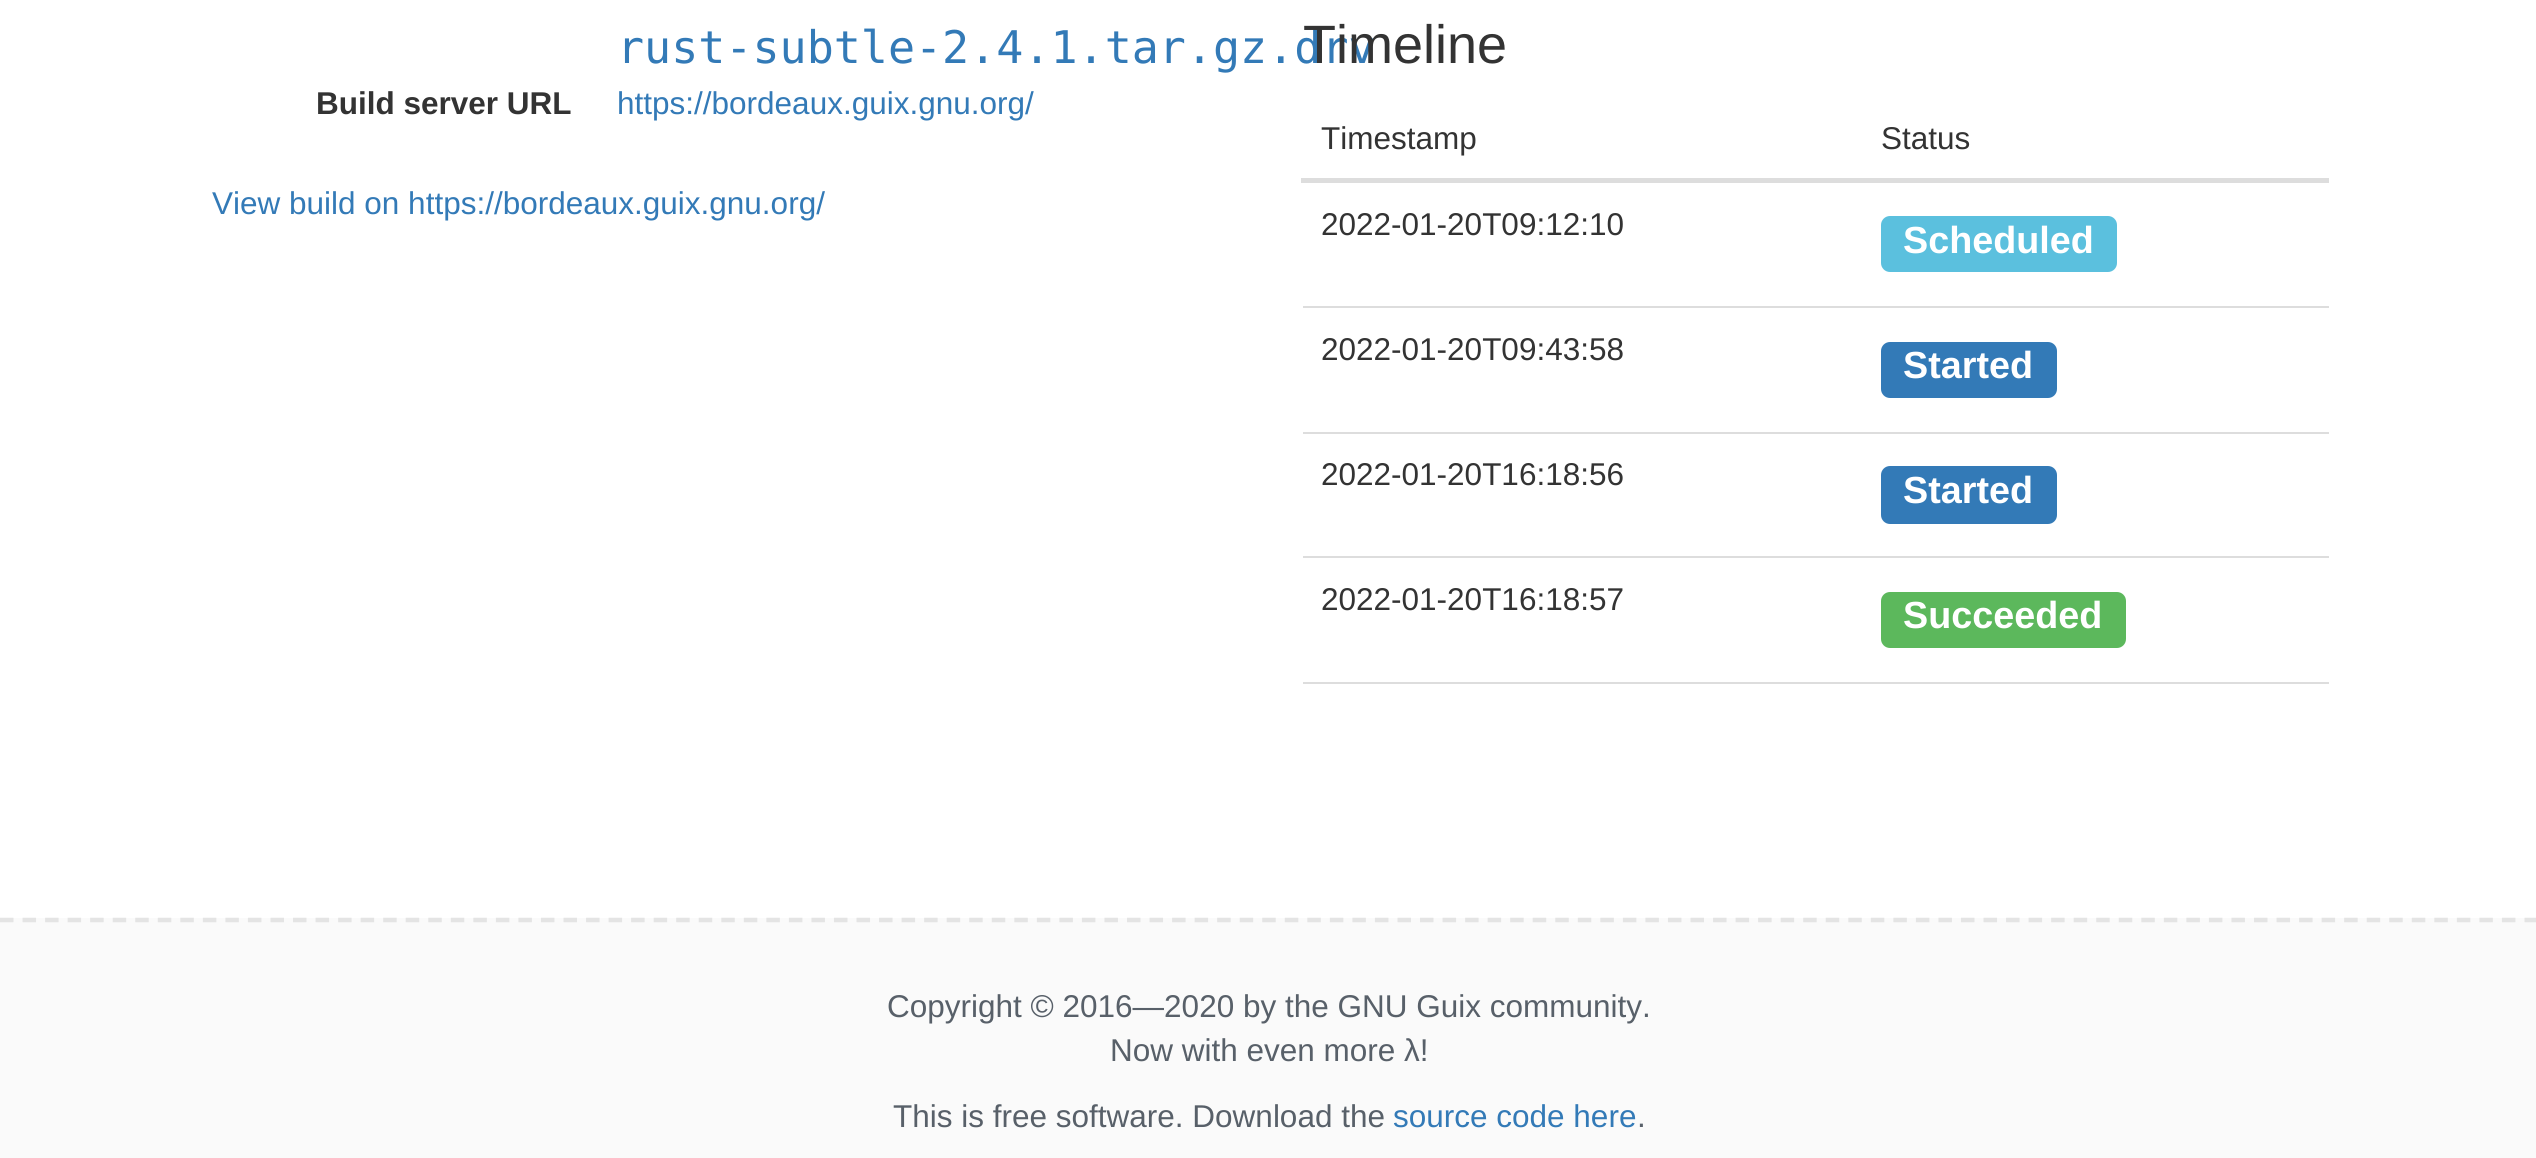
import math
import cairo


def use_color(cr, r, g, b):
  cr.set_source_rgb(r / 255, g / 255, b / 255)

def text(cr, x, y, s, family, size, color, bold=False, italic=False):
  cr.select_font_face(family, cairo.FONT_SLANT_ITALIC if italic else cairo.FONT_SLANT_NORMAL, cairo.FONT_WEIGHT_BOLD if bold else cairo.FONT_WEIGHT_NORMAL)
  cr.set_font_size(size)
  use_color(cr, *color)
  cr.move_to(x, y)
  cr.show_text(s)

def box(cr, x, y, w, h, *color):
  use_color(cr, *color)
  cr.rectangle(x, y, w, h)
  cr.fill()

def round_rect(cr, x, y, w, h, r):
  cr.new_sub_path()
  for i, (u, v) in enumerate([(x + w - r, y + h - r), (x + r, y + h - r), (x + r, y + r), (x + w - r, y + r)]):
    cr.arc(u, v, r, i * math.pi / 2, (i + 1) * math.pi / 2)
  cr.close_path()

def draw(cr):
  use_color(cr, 255, 255, 255)
  cr.paint()
  box(cr, 1301, 178, 1028, 5, 221, 221, 221)
  box(cr, 1303, 306, 1026, 2, 221, 221, 221)
  use_color(cr, 91, 192, 222)
  round_rect(cr, 1881, 216, 236, 56, 9)
  cr.fill()
  box(cr, 1303, 432, 1026, 2, 221, 221, 221)
  use_color(cr, 51, 122, 183)
  round_rect(cr, 1881, 342, 176, 56, 9)
  cr.fill()
  box(cr, 1303, 556, 1026, 2, 221, 221, 221)
  use_color(cr, 51, 122, 183)
  round_rect(cr, 1881, 466, 176, 58, 9)
  cr.fill()
  box(cr, 1303, 682, 1026, 2, 221, 221, 221)
  use_color(cr, 92, 184, 92)
  round_rect(cr, 1881, 592, 245, 56, 9)
  cr.fill()
  box(cr, 0, 918, 2536, 240, 250, 250, 250)
  cr.new_path()
  cr.move_to(0, 920)
  cr.line_to(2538, 920)
  use_color(cr, 228, 228, 228)
  cr.set_line_width(4.5)
  cr.set_dash([13.5, 9.04])
  cr.stroke()
  text(cr, 617, 63, "rust-subtle-2.4.1.tar.gz.drv", "DejaVu Sans Mono", 45, (51, 122, 183))
  text(cr, 316, 114, "Build server URL", "Liberation Sans", 31.5, (51, 51, 51), bold=True)
  text(cr, 617, 114, "https://bordeaux.guix.gnu.org/", "Liberation Sans", 31.5, (51, 122, 183))
  text(cr, 212, 214, "View build on https://bordeaux.guix.gnu.org/", "Liberation Sans", 31.5, (51, 122, 183))
  text(cr, 1303, 63, "Timeline", "Liberation Sans", 54, (51, 51, 51))
  text(cr, 1321, 149, "Timestamp", "Liberation Sans", 31.5, (51, 51, 51))
  text(cr, 1881, 149, "Status", "Liberation Sans", 31.5, (51, 51, 51))
  text(cr, 1321, 235, "2022-01-20T09:12:10", "Liberation Sans", 31.5, (51, 51, 51))
  text(cr, 1903, 253, "Scheduled", "Liberation Sans", 37.75, (255, 255, 255), bold=True)
  text(cr, 1321, 360, "2022-01-20T09:43:58", "Liberation Sans", 31.5, (51, 51, 51))
  text(cr, 1903, 378, "Started", "Liberation Sans", 37.75, (255, 255, 255), bold=True)
  text(cr, 1321, 485, "2022-01-20T16:18:56", "Liberation Sans", 31.5, (51, 51, 51))
  text(cr, 1903, 503, "Started", "Liberation Sans", 37.75, (255, 255, 255), bold=True)
  text(cr, 1321, 610, "2022-01-20T16:18:57", "Liberation Sans", 31.5, (51, 51, 51))
  text(cr, 1903, 628, "Succeeded", "Liberation Sans", 37.75, (255, 255, 255), bold=True)
  text(cr, 887, 1017, "Copyright © 2016—2020 by the GNU Guix community.", "Liberation Sans", 31.5, (88, 96, 105))
  text(cr, 1110, 1061, "Now with even more λ!", "Liberation Sans", 31.5, (88, 96, 105))
  text(cr, 893, 1127, "This is free software. Download the", "Liberation Sans", 31.5, (88, 96, 105))
  text(cr, 1393, 1127, "source code here", "Liberation Sans", 31.5, (51, 122, 183))
  text(cr, 1637, 1127, ".", "Liberation Sans", 31.5, (88, 96, 105))


surface = cairo.ImageSurface(cairo.FORMAT_RGB24, 2536, 1158)
cr = cairo.Context(surface)
options = cairo.FontOptions()
options.set_hint_metrics(cairo.HINT_METRICS_OFF)
options.set_hint_style(cairo.HINT_STYLE_NONE)
cr.set_font_options(options)
cr.set_miter_limit(4)
draw(cr)
surface.write_to_png("out.png")
